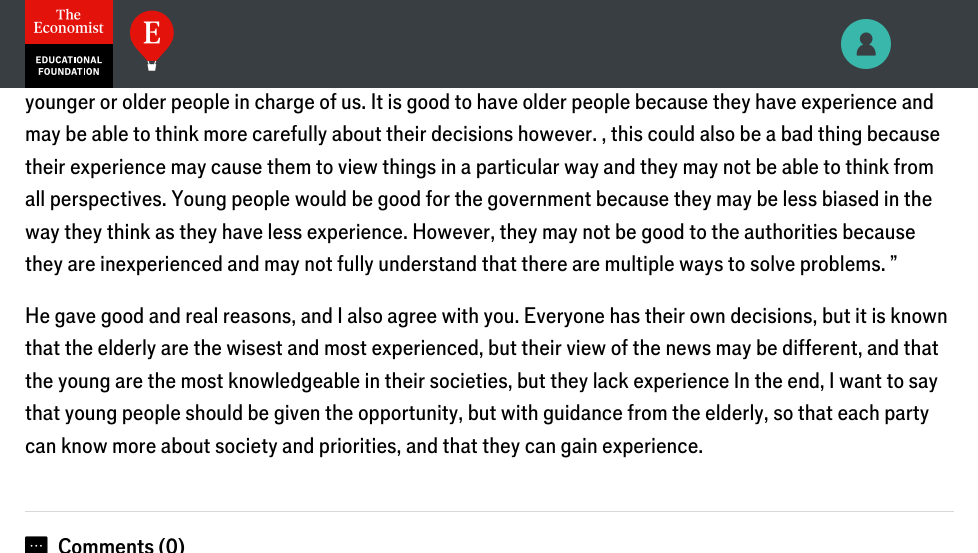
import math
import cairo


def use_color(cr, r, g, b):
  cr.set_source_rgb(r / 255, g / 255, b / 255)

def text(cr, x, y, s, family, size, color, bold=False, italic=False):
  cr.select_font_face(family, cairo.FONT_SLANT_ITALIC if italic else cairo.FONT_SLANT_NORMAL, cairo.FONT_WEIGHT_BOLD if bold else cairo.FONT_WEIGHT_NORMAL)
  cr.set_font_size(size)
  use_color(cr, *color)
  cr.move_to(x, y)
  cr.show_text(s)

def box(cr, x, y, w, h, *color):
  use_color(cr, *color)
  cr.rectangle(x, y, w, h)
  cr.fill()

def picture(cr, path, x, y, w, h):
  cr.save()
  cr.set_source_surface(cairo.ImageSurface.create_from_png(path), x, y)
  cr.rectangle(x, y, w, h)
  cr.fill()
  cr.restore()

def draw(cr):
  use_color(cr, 255, 255, 255)
  cr.paint()
  box(cr, 0, 0, 978, 88, 56, 62, 66)
  picture(cr, "img_01.png", 25, 0, 88, 88)
  picture(cr, "img_02.png", 130, 10, 44, 61)
  use_color(cr, 58, 183, 171)
  cr.arc(866, 44, 25, 0, 2 * math.pi)
  cr.fill()
  picture(cr, "img_03.png", 856, 32, 20, 24)
  box(cr, 25, 511, 929, 1, 215, 215, 215)
  picture(cr, "img_04.png", 25, 536, 23, 17)
  text(cr, 25, 109, "younger or older people in charge of us. It is good to have older people because they have experience and", "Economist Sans", 22.5, (0, 0, 0))
  text(cr, 25, 141, "may be able to think more carefully about their decisions however. , this could also be a bad thing because", "Economist Sans", 22.5, (0, 0, 0))
  text(cr, 25, 174, "their experience may cause them to view things in a particular way and they may not be able to think from", "Economist Sans", 22.5, (0, 0, 0))
  text(cr, 25, 206, "all perspectives. Young people would be good for the government because they may be less biased in the", "Economist Sans", 22.5, (0, 0, 0))
  text(cr, 25, 239, "way they think as they have less experience. However, they may not be good to the authorities because", "Economist Sans", 22.5, (0, 0, 0))
  text(cr, 25, 271, "they are inexperienced and may not fully understand that there are multiple ways to solve problems. \"", "Economist Sans", 22.5, (0, 0, 0))
  text(cr, 25, 323, "He gave good and real reasons, and I also agree with you. Everyone has their own decisions, but it is known", "Economist Sans", 22.5, (0, 0, 0))
  text(cr, 25, 355, "that the elderly are the wisest and most experienced, but their view of the news may be different, and that", "Economist Sans", 22.5, (0, 0, 0))
  text(cr, 25, 388, "the young are the most knowledgeable in their societies, but they lack experience In the end, I want to say", "Economist Sans", 22.5, (0, 0, 0))
  text(cr, 25, 420, "that young people should be given the opportunity, but with guidance from the elderly, so that each party", "Economist Sans", 22.5, (0, 0, 0))
  text(cr, 25, 453, "can know more about society and priorities, and that they can gain experience.", "Economist Sans", 22.5, (0, 0, 0))
  text(cr, 58, 554, "Comments (0)", "Economist Sans Medium", 22.5, (0, 0, 0))


surface = cairo.ImageSurface(cairo.FORMAT_RGB24, 978, 553)
cr = cairo.Context(surface)
options = cairo.FontOptions()
options.set_hint_metrics(cairo.HINT_METRICS_OFF)
options.set_hint_style(cairo.HINT_STYLE_NONE)
cr.set_font_options(options)
cr.set_miter_limit(4)
draw(cr)
surface.write_to_png("out.png")
